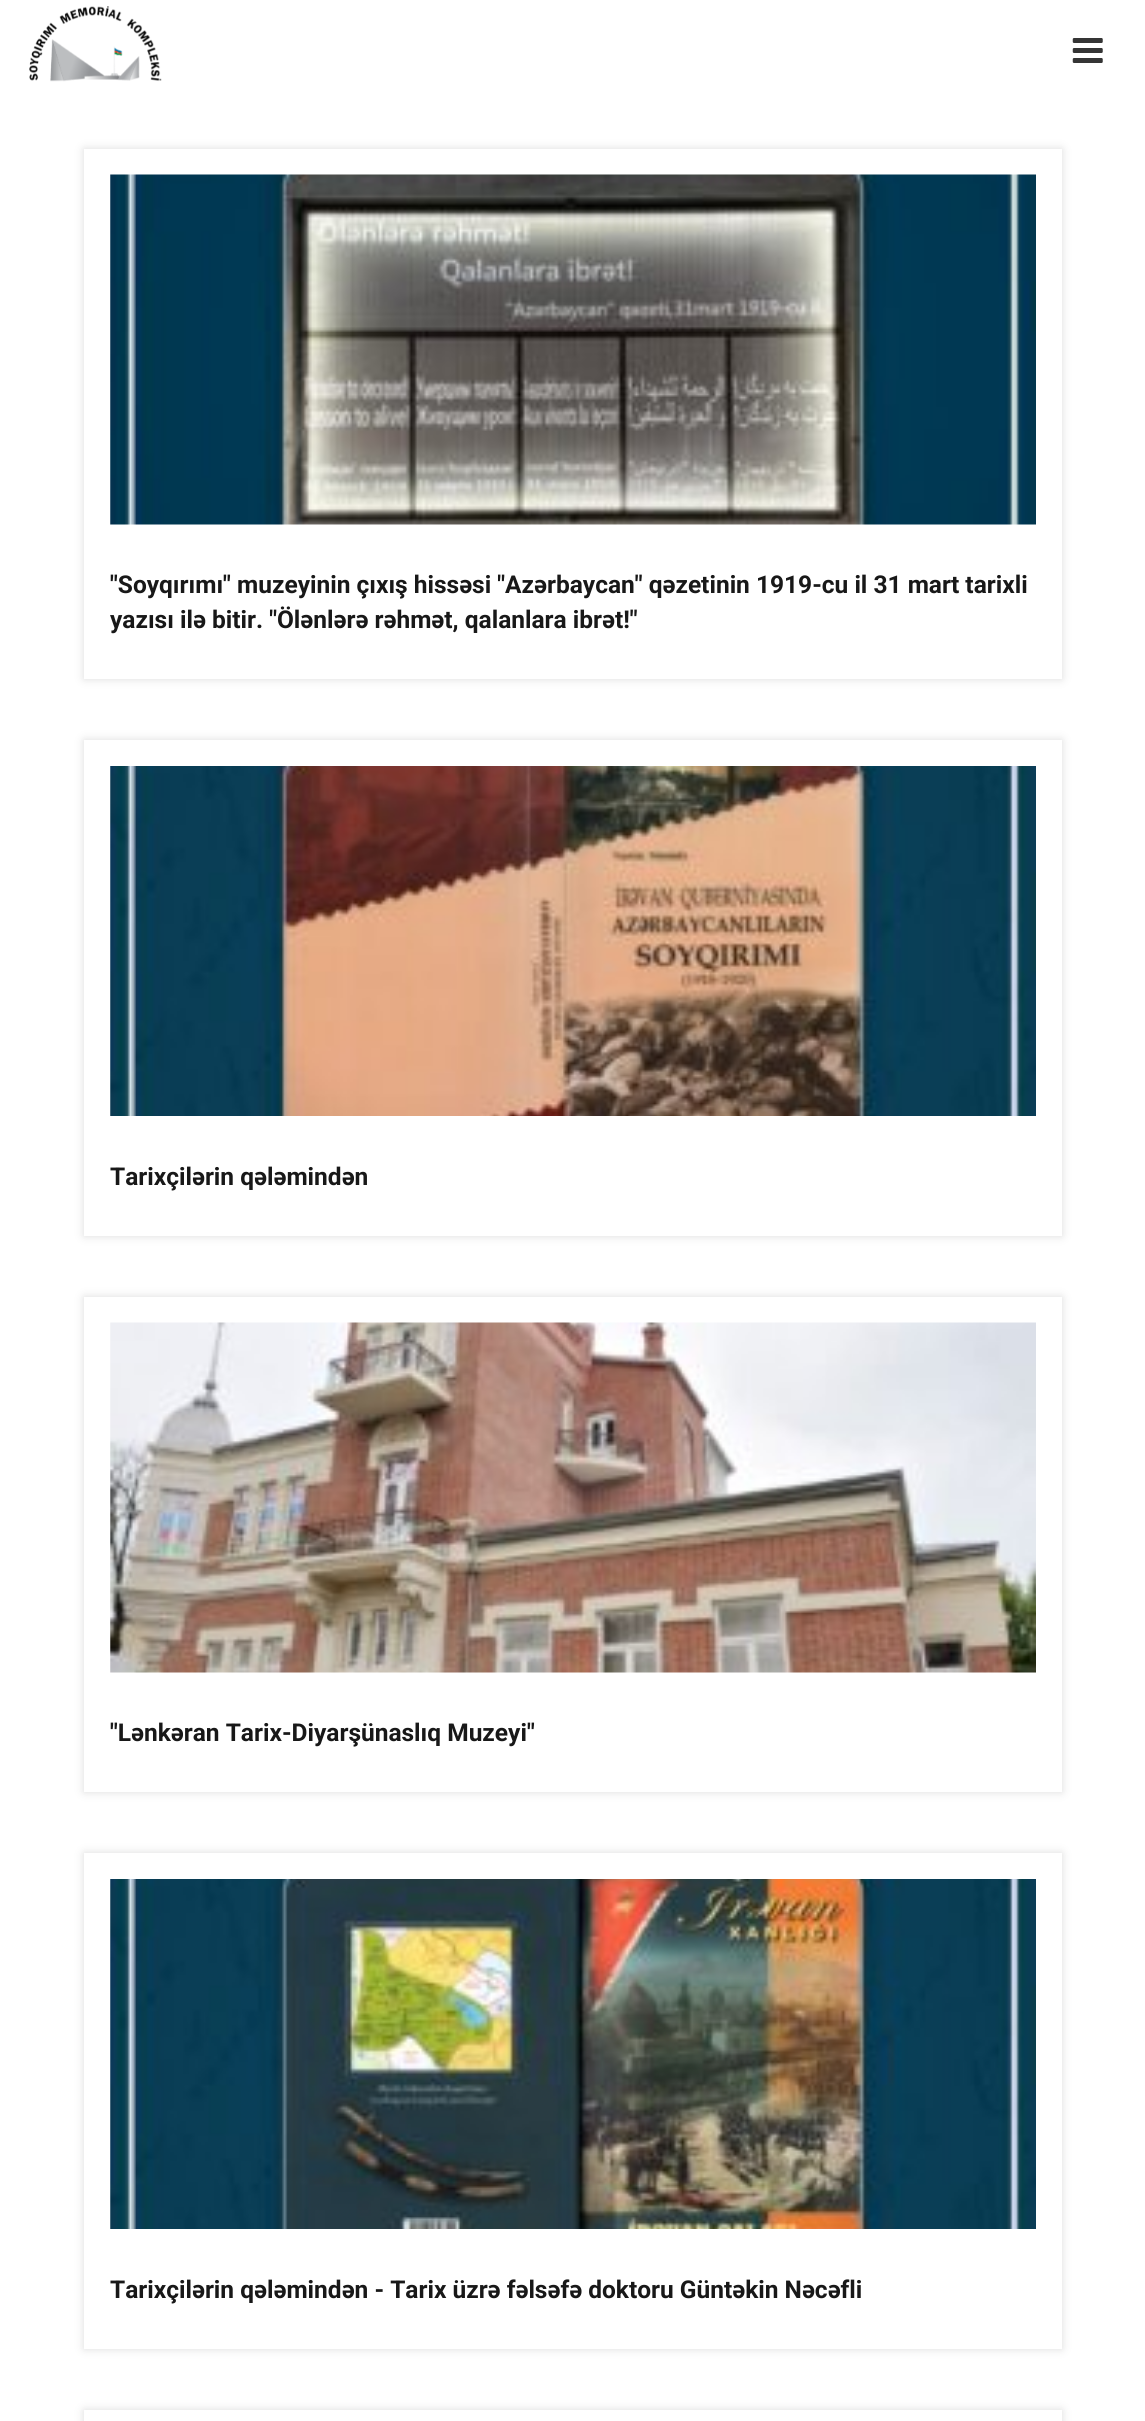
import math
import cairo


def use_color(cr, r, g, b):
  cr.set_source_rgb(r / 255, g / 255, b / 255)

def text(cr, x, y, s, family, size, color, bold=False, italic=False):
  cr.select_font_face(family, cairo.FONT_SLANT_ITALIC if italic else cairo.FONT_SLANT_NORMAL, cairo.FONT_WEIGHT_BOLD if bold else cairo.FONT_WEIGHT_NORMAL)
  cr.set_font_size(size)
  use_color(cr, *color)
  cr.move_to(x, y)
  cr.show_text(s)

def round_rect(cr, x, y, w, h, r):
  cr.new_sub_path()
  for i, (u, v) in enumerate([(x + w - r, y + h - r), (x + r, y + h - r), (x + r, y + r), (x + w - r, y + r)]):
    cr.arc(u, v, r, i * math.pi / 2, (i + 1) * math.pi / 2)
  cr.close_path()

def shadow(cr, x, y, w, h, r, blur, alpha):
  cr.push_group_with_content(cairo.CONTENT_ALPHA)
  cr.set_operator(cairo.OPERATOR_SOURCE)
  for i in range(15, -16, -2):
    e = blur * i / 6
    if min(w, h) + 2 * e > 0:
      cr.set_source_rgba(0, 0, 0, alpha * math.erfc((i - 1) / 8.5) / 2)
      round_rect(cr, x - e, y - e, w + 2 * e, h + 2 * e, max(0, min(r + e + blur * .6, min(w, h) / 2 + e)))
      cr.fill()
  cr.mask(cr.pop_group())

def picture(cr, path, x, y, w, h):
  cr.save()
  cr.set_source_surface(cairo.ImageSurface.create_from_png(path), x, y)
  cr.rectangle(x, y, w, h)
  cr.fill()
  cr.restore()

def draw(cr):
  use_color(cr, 255, 255, 255)
  cr.paint()
  picture(cr, "img_01.png", 29, 6, 133, 76)
  picture(cr, "img_02.png", 1072, 38, 31, 25)
  cr.save()
  cr.set_fill_rule(cairo.FILL_RULE_EVEN_ODD)
  cr.new_path()
  cr.move_to(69, 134)
  cr.line_to(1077, 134)
  cr.line_to(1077, 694)
  cr.line_to(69, 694)
  cr.close_path()
  cr.move_to(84, 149)
  cr.line_to(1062, 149)
  cr.line_to(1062, 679)
  cr.line_to(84, 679)
  cr.close_path()
  cr.clip()
  use_color(cr, 221, 221, 221)
  shadow(cr, 84, 149, 978, 530, 0, 4.5, 1)
  cr.restore()
  picture(cr, "img_03.png", 110, 174, 926, 351)
  cr.save()
  cr.set_fill_rule(cairo.FILL_RULE_EVEN_ODD)
  cr.new_path()
  cr.move_to(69, 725)
  cr.line_to(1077, 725)
  cr.line_to(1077, 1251)
  cr.line_to(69, 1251)
  cr.close_path()
  cr.move_to(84, 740)
  cr.line_to(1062, 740)
  cr.line_to(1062, 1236)
  cr.line_to(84, 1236)
  cr.close_path()
  cr.clip()
  use_color(cr, 221, 221, 221)
  shadow(cr, 84, 740, 978, 496, 0, 4.5, 1)
  cr.restore()
  picture(cr, "img_04.png", 110, 766, 926, 350)
  cr.save()
  cr.set_fill_rule(cairo.FILL_RULE_EVEN_ODD)
  cr.new_path()
  cr.move_to(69, 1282)
  cr.line_to(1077, 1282)
  cr.line_to(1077, 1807)
  cr.line_to(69, 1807)
  cr.close_path()
  cr.move_to(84, 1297)
  cr.line_to(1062, 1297)
  cr.line_to(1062, 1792)
  cr.line_to(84, 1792)
  cr.close_path()
  cr.clip()
  use_color(cr, 221, 221, 221)
  shadow(cr, 84, 1297, 978, 495, 0, 4.5, 1)
  cr.restore()
  picture(cr, "img_05.png", 110, 1322, 926, 351)
  cr.save()
  cr.set_fill_rule(cairo.FILL_RULE_EVEN_ODD)
  cr.new_path()
  cr.move_to(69, 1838)
  cr.line_to(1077, 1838)
  cr.line_to(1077, 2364)
  cr.line_to(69, 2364)
  cr.close_path()
  cr.move_to(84, 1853)
  cr.line_to(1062, 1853)
  cr.line_to(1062, 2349)
  cr.line_to(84, 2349)
  cr.close_path()
  cr.clip()
  use_color(cr, 221, 221, 221)
  shadow(cr, 84, 1853, 978, 496, 0, 4.5, 1)
  cr.restore()
  picture(cr, "img_06.png", 110, 1879, 926, 350)
  cr.save()
  cr.set_fill_rule(cairo.FILL_RULE_EVEN_ODD)
  cr.new_path()
  cr.move_to(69, 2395)
  cr.line_to(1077, 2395)
  cr.line_to(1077, 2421)
  cr.line_to(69, 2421)
  cr.close_path()
  cr.move_to(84, 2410)
  cr.line_to(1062, 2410)
  cr.line_to(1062, 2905)
  cr.line_to(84, 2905)
  cr.close_path()
  cr.clip()
  use_color(cr, 221, 221, 221)
  shadow(cr, 84, 2410, 978, 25, 0, 4.5, 1)
  cr.restore()
  text(cr, 110, 593, "\"Soyqırımı\" muzeyinin çıxış hissəsi \"Azərbaycan\" qəzetinin 1919-cu il 31 mart tarixli", "Roboto", 24.5, (24, 24, 24), bold=True)
  text(cr, 110, 628, "yazısı ilə bitir. \"Ölənlərə rəhmət, qalanlara ibrət!\"", "Roboto", 24.5, (24, 24, 24), bold=True)
  text(cr, 110, 1185, "Tarixçilərin qələmindən", "Roboto", 24.5, (24, 24, 24), bold=True)
  text(cr, 110, 1741, "\"Lənkəran Tarix-Diyarşünaslıq Muzeyi\"", "Roboto", 24.5, (24, 24, 24), bold=True)
  text(cr, 110, 2298, "Tarixçilərin qələmindən - Tarix üzrə fəlsəfə doktoru Güntəkin Nəcəfli", "Roboto", 24.5, (24, 24, 24), bold=True)


surface = cairo.ImageSurface(cairo.FORMAT_RGB24, 1145, 2421)
cr = cairo.Context(surface)
options = cairo.FontOptions()
options.set_hint_metrics(cairo.HINT_METRICS_OFF)
options.set_hint_style(cairo.HINT_STYLE_NONE)
cr.set_font_options(options)
cr.set_miter_limit(4)
draw(cr)
surface.write_to_png("out.png")
